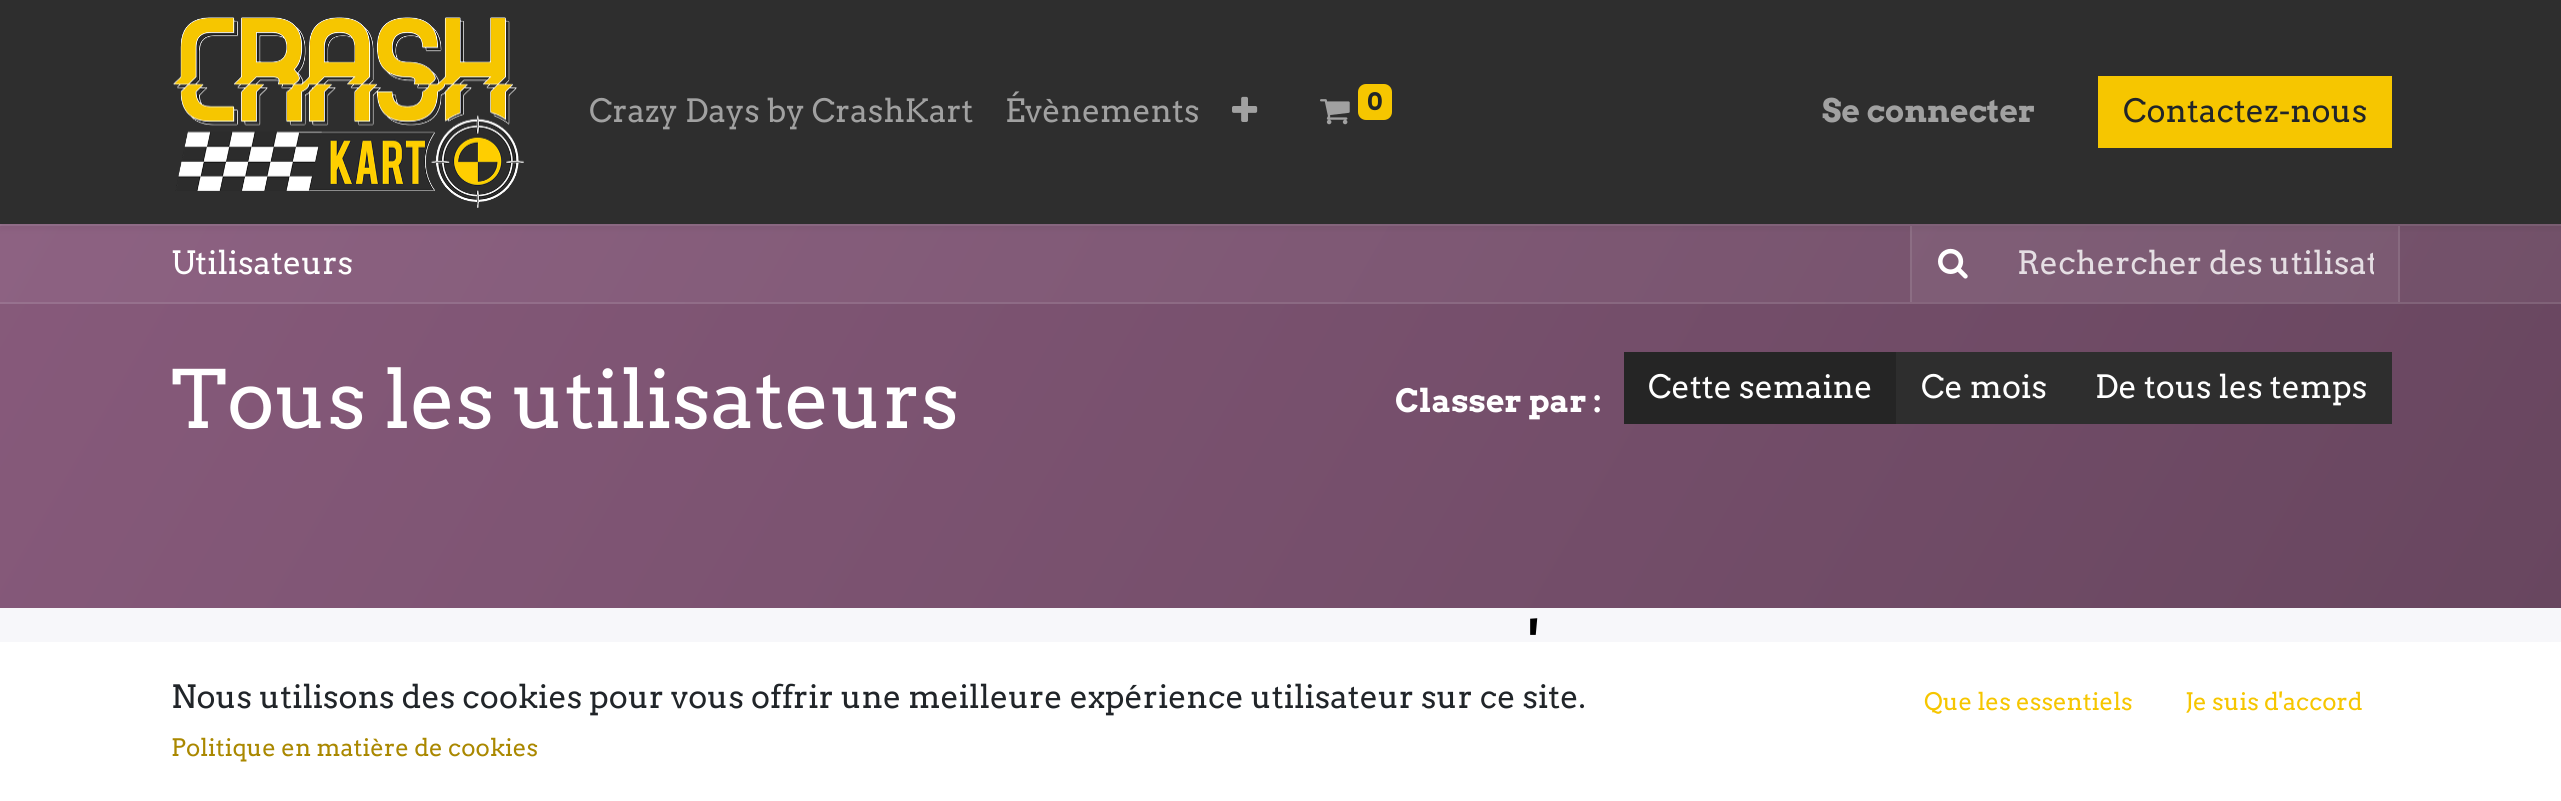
import math
import cairo


def use_color(cr, r, g, b):
  cr.set_source_rgb(r / 255, g / 255, b / 255)

def text(cr, x, y, s, family, size, color, bold=False, italic=False):
  cr.select_font_face(family, cairo.FONT_SLANT_ITALIC if italic else cairo.FONT_SLANT_NORMAL, cairo.FONT_WEIGHT_BOLD if bold else cairo.FONT_WEIGHT_NORMAL)
  cr.set_font_size(size)
  use_color(cr, *color)
  cr.move_to(x, y)
  cr.show_text(s)

def box(cr, x, y, w, h, *color):
  use_color(cr, *color)
  cr.rectangle(x, y, w, h)
  cr.fill()

def round_rect(cr, x, y, w, h, r):
  cr.new_sub_path()
  for i, (u, v) in enumerate([(x + w - r, y + h - r), (x + r, y + h - r), (x + r, y + r), (x + w - r, y + r)]):
    cr.arc(u, v, r, i * math.pi / 2, (i + 1) * math.pi / 2)
  cr.close_path()

def shadow(cr, x, y, w, h, r, blur, alpha):
  cr.push_group_with_content(cairo.CONTENT_ALPHA)
  cr.set_operator(cairo.OPERATOR_SOURCE)
  for i in range(15, -16, -2):
    e = blur * i / 6
    if min(w, h) + 2 * e > 0:
      cr.set_source_rgba(0, 0, 0, alpha * math.erfc((i - 1) / 8.5) / 2)
      round_rect(cr, x - e, y - e, w + 2 * e, h + 2 * e, max(0, min(r + e + blur * .6, min(w, h) / 2 + e)))
      cr.fill()
  cr.mask(cr.pop_group())

def picture(cr, path, x, y, w, h):
  cr.save()
  cr.set_source_surface(cairo.ImageSurface.create_from_png(path), x, y)
  cr.rectangle(x, y, w, h)
  cr.fill()
  cr.restore()

def draw(cr):
  use_color(cr, 247, 247, 250)
  cr.paint()
  gradient = cairo.LinearGradient(237, -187, 2325, 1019)
  gradient.add_color_stop_rgba(0, 0.553, 0.384, 0.51, 1)
  gradient.add_color_stop_rgba(1, 0.439, 0.31, 0.404, 1)
  cr.set_source(gradient)
  cr.rectangle(0, 226, 2561, 76)
  cr.fill()
  gradient = cairo.LinearGradient(237, -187, 2325, 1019)
  gradient.add_color_stop_rgba(0, 0.576, 0.416, 0.533, 1)
  gradient.add_color_stop_rgba(1, 0.467, 0.345, 0.435, 1)
  cr.set_source(gradient)
  cr.rectangle(1912, 226, 486, 76)
  cr.fill()
  gradient = cairo.LinearGradient(237, -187, 2325, 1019)
  gradient.add_color_stop_rgba(0, 0.596, 0.447, 0.561, 1)
  gradient.add_color_stop_rgba(1, 0.494, 0.38, 0.463, 1)
  cr.set_source(gradient)
  cr.rectangle(0, 224, 2561, 2)
  cr.fill()
  box(cr, 2398, 226, 2, 76, 136, 107, 128)
  box(cr, 1910, 226, 2, 76, 140, 110, 132)
  use_color(cr, 0, 0, 0)
  shadow(cr, 0, 4, 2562, 224, 0, 4, 0.07)
  box(cr, 0, 0, 2561, 224, 46, 46, 46)
  picture(cr, "img_01.png", 173, 17, 351, 191)
  picture(cr, "img_02.png", 1232, 96, 26, 26)
  picture(cr, "img_03.png", 1320, 99, 30, 26)
  use_color(cr, 246, 198, 0)
  round_rect(cr, 1358, 84, 34, 36, 8)
  cr.fill()
  box(cr, 2098, 76, 294, 72, 246, 198, 0)
  gradient = cairo.LinearGradient(237, -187, 2325, 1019)
  gradient.add_color_stop_rgba(0, 0.529, 0.353, 0.482, 1)
  gradient.add_color_stop_rgba(1, 0.408, 0.275, 0.373, 1)
  cr.set_source(gradient)
  cr.rectangle(0, 304, 2561, 304)
  cr.fill()
  gradient = cairo.LinearGradient(237, -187, 2325, 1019)
  gradient.add_color_stop_rgba(0, 0.596, 0.447, 0.561, 1)
  gradient.add_color_stop_rgba(1, 0.494, 0.38, 0.463, 1)
  cr.set_source(gradient)
  cr.rectangle(0, 302, 2561, 2)
  cr.fill()
  picture(cr, "img_04.png", 1938, 248, 30, 31)
  box(cr, 1624, 352, 272, 72, 37, 37, 37)
  box(cr, 1896, 352, 496, 72, 46, 46, 46)
  box(cr, 0, 642, 2561, 159, 255, 255, 255)
  text(cr, 589, 122, "Crazy Days by CrashKart", "Arvo", 32, (161, 161, 161))
  text(cr, 1005, 122, "Évènements", "Arvo", 32, (161, 161, 161))
  text(cr, 1367, 110, "0", "Arvo", 24, (33, 37, 41), bold=True)
  text(cr, 1822, 122, "Se connecter", "Arvo", 32, (161, 161, 161), bold=True)
  text(cr, 2123, 122, "Contactez-nous", "Arvo", 32, (33, 37, 41))
  text(cr, 171, 274, "Utilisateurs", "Arvo", 32, (255, 255, 255))
  cr.save()
  cr.rectangle(2018, 244, 356, 38)
  cr.clip()
  text(cr, 2017, 274, "Rechercher des utilisat", "Arvo", 32, (229, 222, 227))
  cr.restore()
  text(cr, 171, 428, "Tous les utilisateurs", "Arvo", 80, (255, 255, 255))
  text(cr, 1395, 412, "Classer par :", "Arvo", 32, (255, 255, 255), bold=True)
  text(cr, 1648, 398, "Cette semaine", "Arvo", 32, (255, 255, 255))
  text(cr, 1921, 398, "Ce mois", "Arvo", 32, (255, 255, 255))
  text(cr, 2095, 398, "De tous les temps", "Arvo", 32, (255, 255, 255))
  text(cr, 1529, 668, "'", "Arvo", 64, (0, 0, 0))
  text(cr, 171, 708, "Nous utilisons des cookies pour vous offrir une meilleure expérience utilisateur sur ce site.", "Arvo", 32, (33, 37, 41))
  text(cr, 171, 756, "Politique en matière de cookies", "Arvo", 24, (170, 136, 0))
  text(cr, 1924, 710, "Que les essentiels", "Arvo", 24, (246, 198, 0))
  text(cr, 2185, 710, "Je suis d'accord", "Arvo", 24, (246, 198, 0))


surface = cairo.ImageSurface(cairo.FORMAT_RGB24, 2561, 801)
cr = cairo.Context(surface)
options = cairo.FontOptions()
options.set_hint_metrics(cairo.HINT_METRICS_OFF)
options.set_hint_style(cairo.HINT_STYLE_NONE)
cr.set_font_options(options)
cr.set_miter_limit(4)
draw(cr)
surface.write_to_png("out.png")
